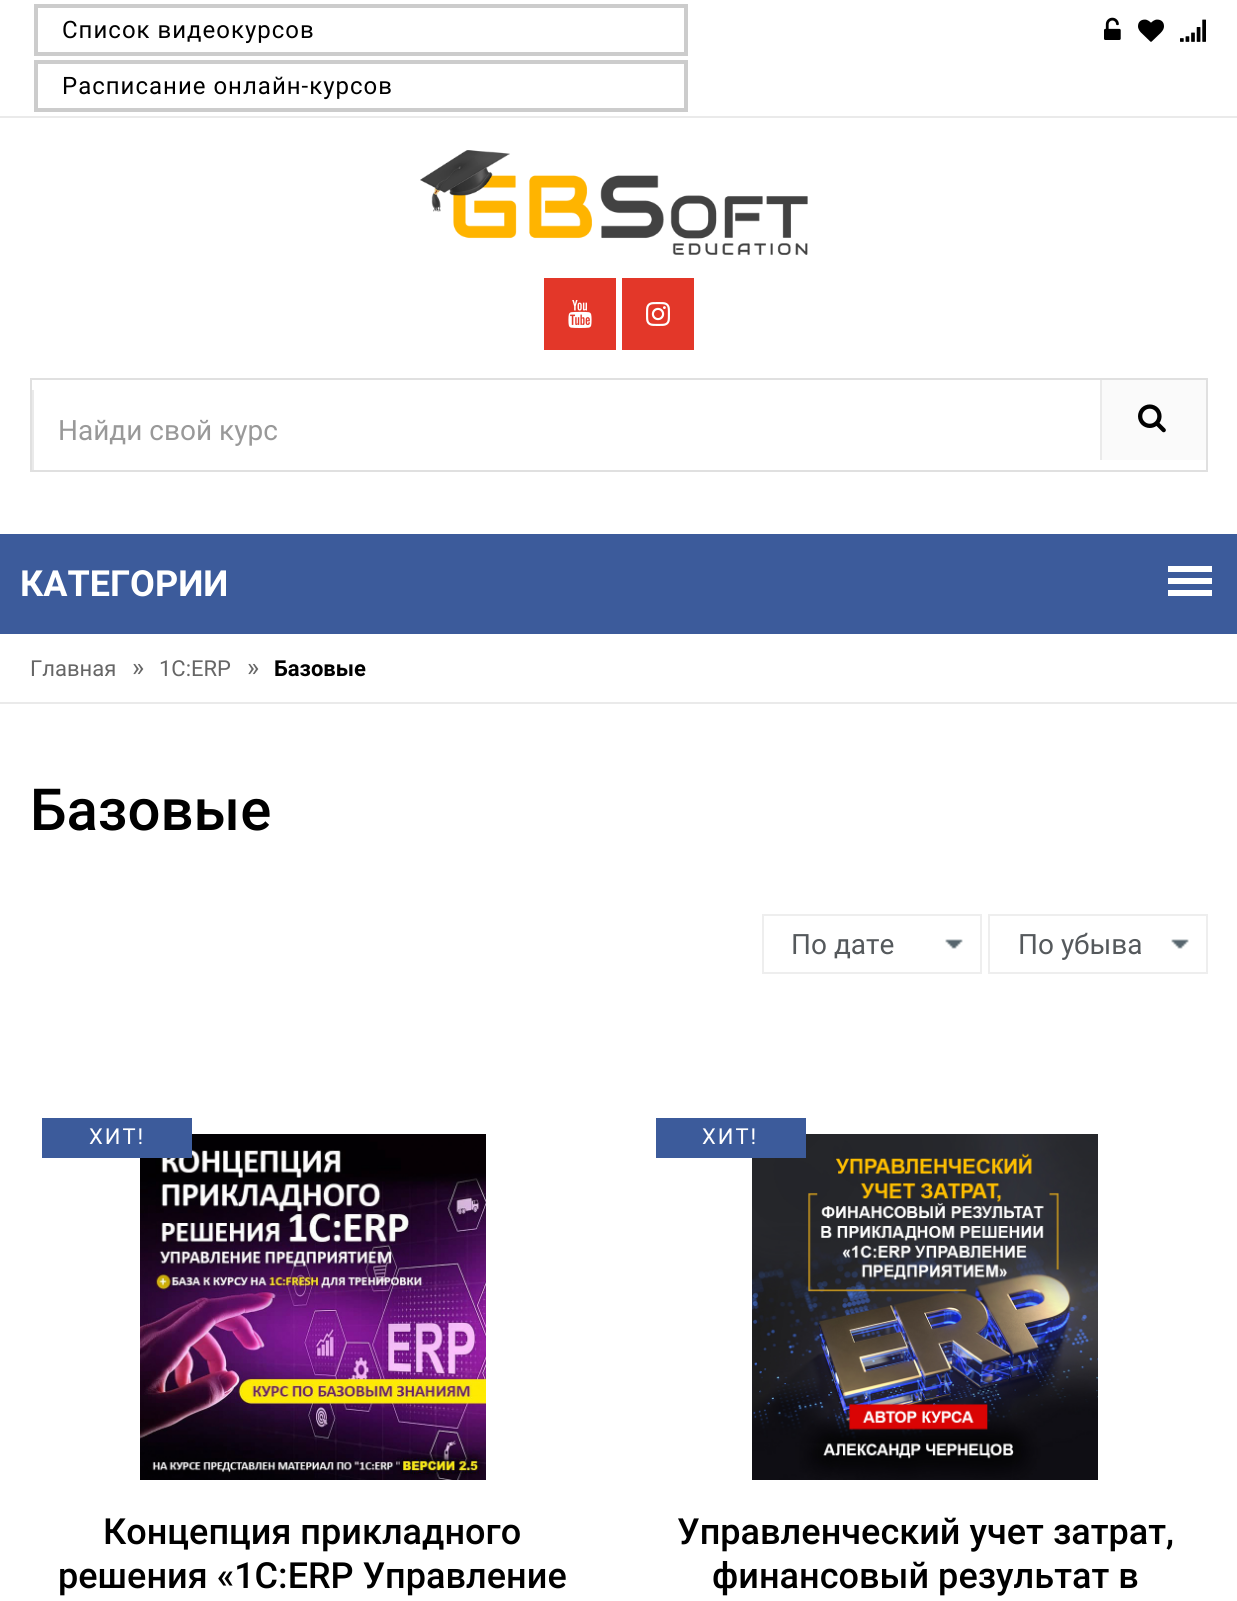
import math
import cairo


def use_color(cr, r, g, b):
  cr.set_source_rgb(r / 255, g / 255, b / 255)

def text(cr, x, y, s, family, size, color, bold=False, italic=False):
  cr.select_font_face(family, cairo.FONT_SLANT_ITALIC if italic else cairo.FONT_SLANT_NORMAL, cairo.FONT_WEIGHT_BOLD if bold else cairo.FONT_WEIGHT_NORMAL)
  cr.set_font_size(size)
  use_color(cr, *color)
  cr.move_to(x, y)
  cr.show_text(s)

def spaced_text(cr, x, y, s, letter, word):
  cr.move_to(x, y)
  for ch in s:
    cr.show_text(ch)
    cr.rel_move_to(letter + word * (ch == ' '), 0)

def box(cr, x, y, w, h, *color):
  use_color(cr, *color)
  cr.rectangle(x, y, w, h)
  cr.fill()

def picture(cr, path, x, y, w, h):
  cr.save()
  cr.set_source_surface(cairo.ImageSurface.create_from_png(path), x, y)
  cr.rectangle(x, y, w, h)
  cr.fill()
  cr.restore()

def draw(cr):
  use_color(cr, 255, 255, 255)
  cr.paint()
  box(cr, 0, 116, 1237, 2, 234, 234, 234)
  cr.rectangle(36, 6, 650, 48)
  use_color(cr, 204, 204, 204)
  cr.set_line_width(4)
  cr.stroke()
  cr.rectangle(36, 62, 650, 48)
  cr.stroke()
  picture(cr, "img_01.png", 1104, 17, 17, 23)
  picture(cr, "img_02.png", 1138, 19, 26, 23)
  picture(cr, "img_03.png", 1180, 19, 26, 23)
  picture(cr, "img_04.png", 420, 150, 388, 105)
  box(cr, 544, 278, 72, 72, 227, 55, 41)
  picture(cr, "img_05.png", 568, 300, 24, 28)
  box(cr, 622, 278, 72, 72, 227, 55, 41)
  picture(cr, "img_06.png", 646, 302, 24, 24)
  cr.rectangle(31, 379, 1176, 92)
  use_color(cr, 224, 224, 224)
  cr.set_line_width(2)
  cr.stroke()
  box(cr, 32, 390, 2, 80, 234, 234, 234)
  box(cr, 1102, 380, 104, 80, 250, 250, 250)
  box(cr, 1100, 380, 2, 80, 234, 234, 234)
  picture(cr, "img_07.png", 1138, 404, 28, 29)
  box(cr, 0, 534, 1237, 100, 60, 91, 155)
  box(cr, 1168, 566, 44, 6, 255, 255, 255)
  box(cr, 1168, 578, 44, 6, 255, 255, 255)
  box(cr, 1168, 590, 44, 6, 255, 255, 255)
  box(cr, 0, 702, 1237, 2, 234, 234, 234)
  picture(cr, "img_08.png", 945, 939, 18, 10)
  cr.rectangle(763, 915, 218, 58)
  use_color(cr, 238, 238, 238)
  cr.stroke()
  picture(cr, "img_08.png", 1171, 939, 18, 10)
  cr.rectangle(989, 915, 218, 58)
  cr.stroke()
  picture(cr, "img_09.png", 140, 1134, 346, 346)
  box(cr, 42, 1118, 150, 40, 60, 91, 155)
  picture(cr, "img_10.png", 752, 1134, 346, 346)
  box(cr, 656, 1118, 150, 40, 60, 91, 155)
  cr.select_font_face("Roboto")
  cr.set_font_size(24)
  use_color(cr, 0, 0, 0)
  spaced_text(cr, 62, 38, "Список видеокурсов", 1, 0)
  spaced_text(cr, 62, 94, "Расписание онлайн-курсов", 1, 0)
  text(cr, 58, 440, "Найди свой курс", "Roboto", 28, (153, 153, 153))
  text(cr, 20, 596, "КАТЕГОРИИ", "Roboto", 36, (255, 255, 255), bold=True)
  text(cr, 30, 676, "Главная", "Roboto", 22, (102, 102, 102))
  text(cr, 132, 676, "»", "Roboto", 26, (102, 102, 102))
  text(cr, 159, 676, "1С:ERP", "Roboto", 22, (102, 102, 102))
  text(cr, 247, 676, "»", "Roboto", 26, (102, 102, 102))
  text(cr, 274, 676, "Базовые", "Roboto", 22, (0, 0, 0), bold=True)
  text(cr, 30, 830, "Базовые", "Roboto Medium", 58, (0, 0, 0))
  text(cr, 791, 954, "По дате", "Roboto", 28, (85, 89, 92))
  text(cr, 1018, 954, "По убыва", "Roboto", 28, (85, 89, 92))
  cr.set_font_size(22)
  use_color(cr, 255, 255, 255)
  spaced_text(cr, 89, 1144, "ХИТ!", 2, 0)
  text(cr, 103, 1544, "Концепция прикладного", "Roboto Medium", 36, (0, 0, 0))
  text(cr, 58, 1588, "решения «1С:ERP Управление", "Roboto Medium", 36, (0, 0, 0))
  cr.select_font_face("Roboto")
  cr.set_font_size(22)
  use_color(cr, 255, 255, 255)
  spaced_text(cr, 702, 1144, "ХИТ!", 2, 0)
  text(cr, 677, 1544, "Управленческий учет затрат,", "Roboto Medium", 36, (0, 0, 0))
  text(cr, 712, 1588, "финансовый результат в", "Roboto Medium", 36, (0, 0, 0))


surface = cairo.ImageSurface(cairo.FORMAT_RGB24, 1237, 1601)
cr = cairo.Context(surface)
options = cairo.FontOptions()
options.set_hint_metrics(cairo.HINT_METRICS_OFF)
options.set_hint_style(cairo.HINT_STYLE_NONE)
cr.set_font_options(options)
cr.set_miter_limit(4)
draw(cr)
surface.write_to_png("out.png")
